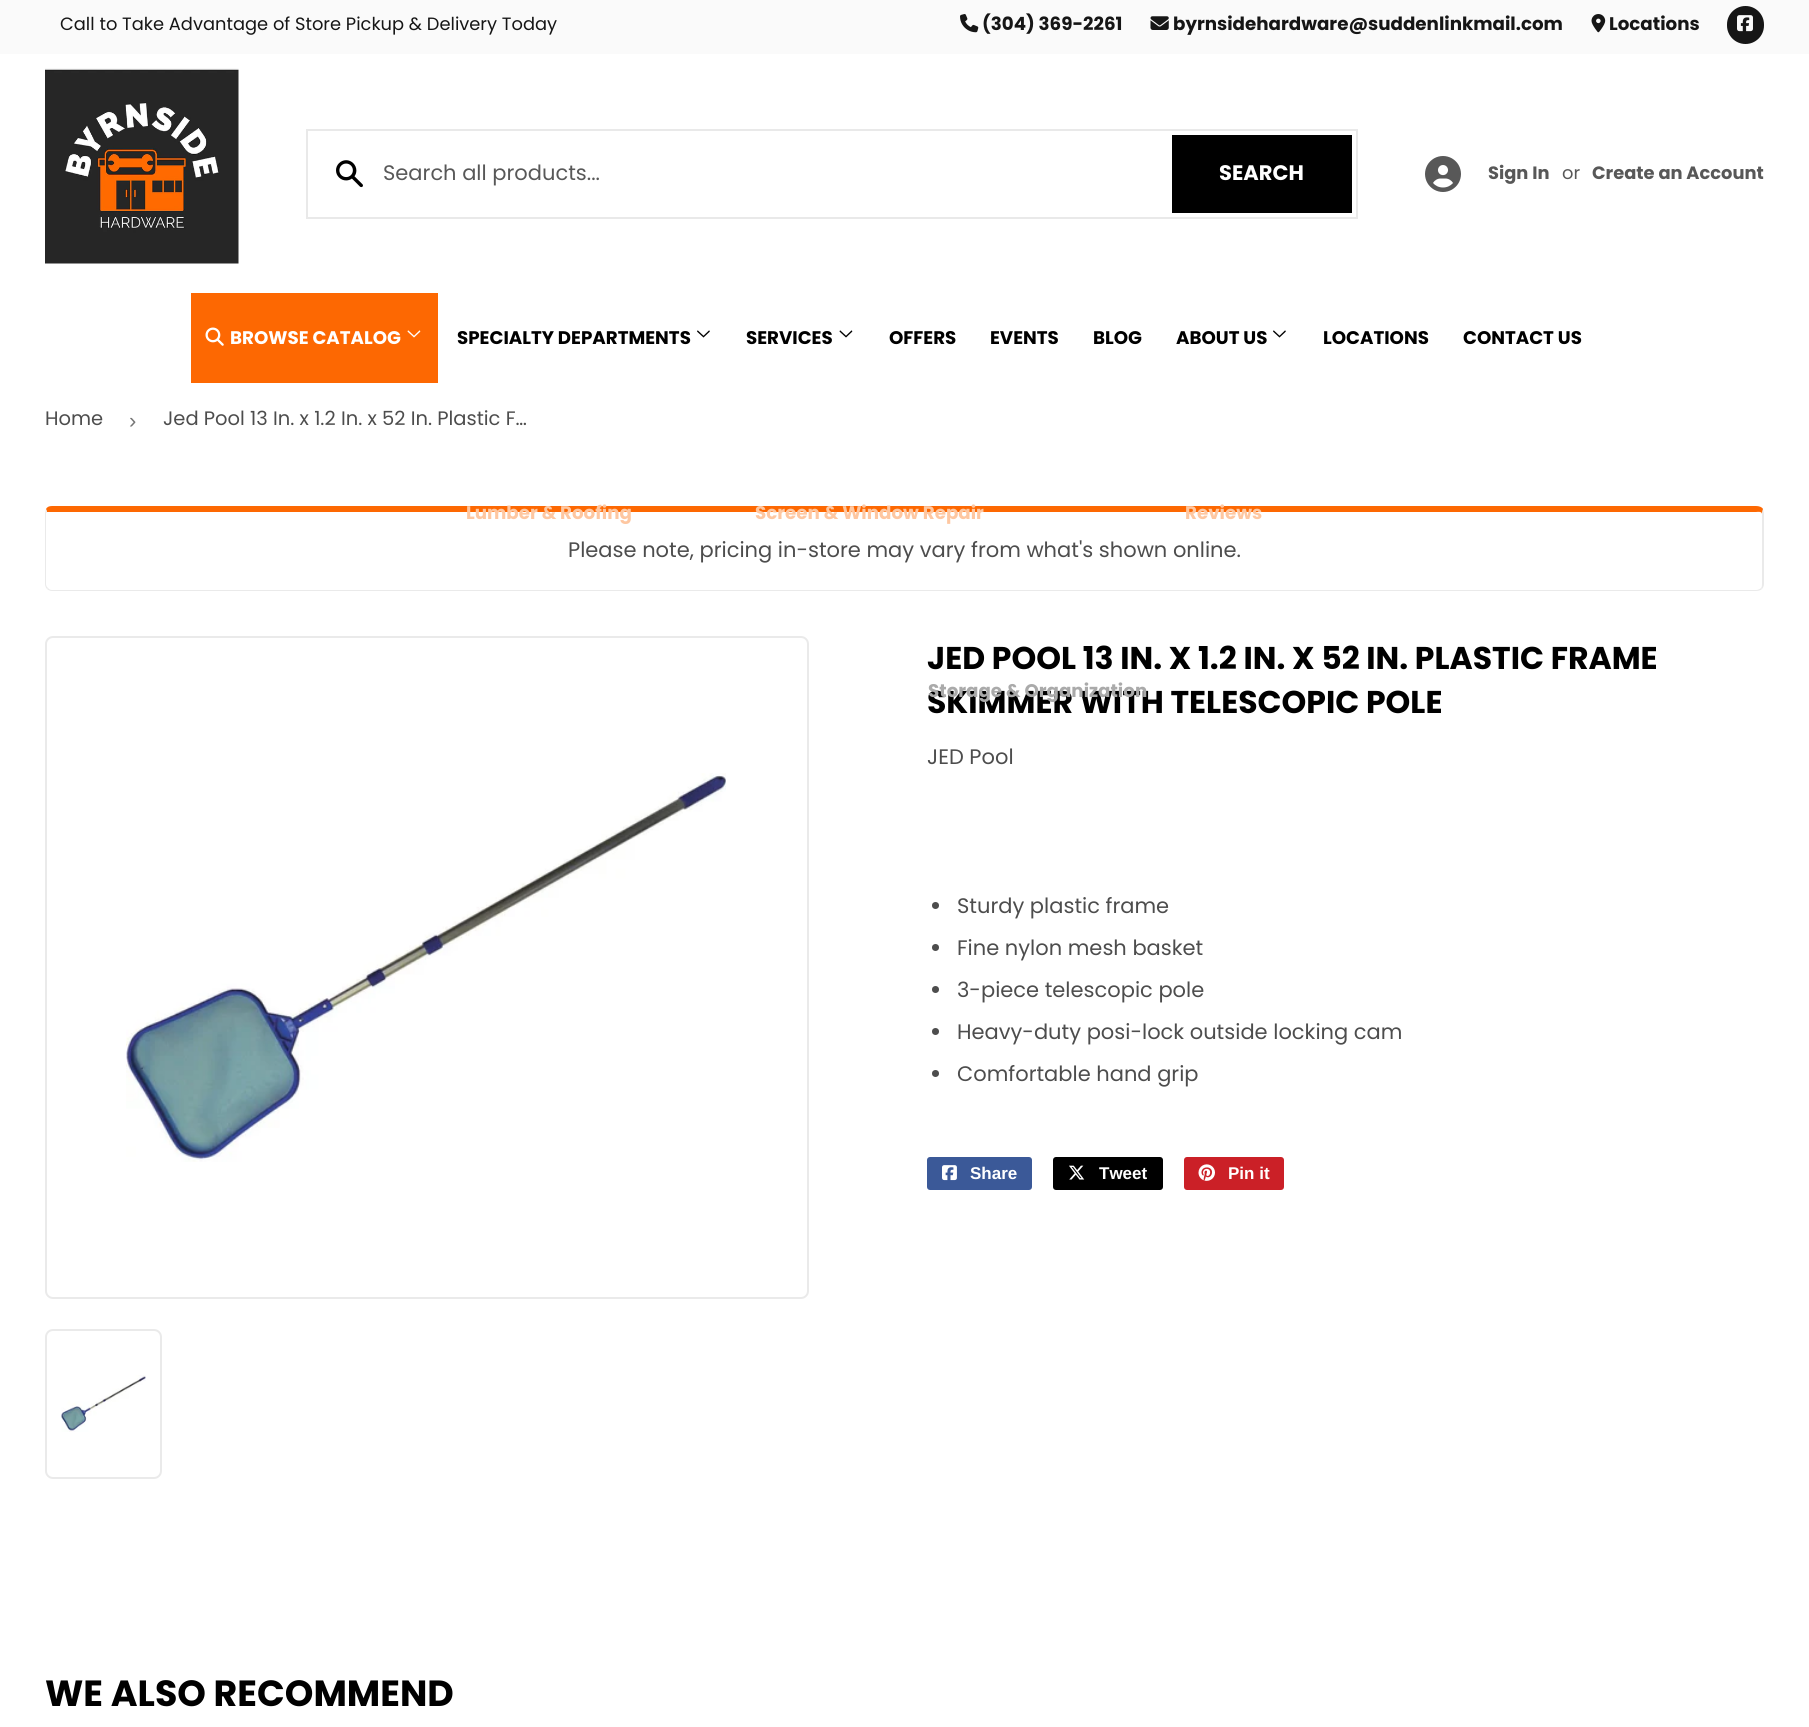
import math
import cairo


def use_color(cr, r, g, b):
  cr.set_source_rgb(r / 255, g / 255, b / 255)

def text(cr, x, y, s, family, size, color, bold=False, italic=False):
  cr.select_font_face(family, cairo.FONT_SLANT_ITALIC if italic else cairo.FONT_SLANT_NORMAL, cairo.FONT_WEIGHT_BOLD if bold else cairo.FONT_WEIGHT_NORMAL)
  cr.set_font_size(size)
  use_color(cr, *color)
  cr.move_to(x, y)
  cr.show_text(s)

def box(cr, x, y, w, h, *color):
  use_color(cr, *color)
  cr.rectangle(x, y, w, h)
  cr.fill()

def round_rect(cr, x, y, w, h, r):
  cr.new_sub_path()
  for i, (u, v) in enumerate([(x + w - r, y + h - r), (x + r, y + h - r), (x + r, y + r), (x + w - r, y + r)]):
    cr.arc(u, v, r, i * math.pi / 2, (i + 1) * math.pi / 2)
  cr.close_path()

def picture(cr, path, x, y, w, h):
  cr.save()
  cr.set_source_surface(cairo.ImageSurface.create_from_png(path), x, y)
  cr.rectangle(x, y, w, h)
  cr.fill()
  cr.restore()

def draw(cr):
  use_color(cr, 255, 255, 255)
  cr.paint()
  box(cr, 0, 0, 1809, 54, 250, 250, 250)
  picture(cr, "img_01.png", 960, 14, 19, 19)
  picture(cr, "img_02.png", 1150, 16, 19, 14)
  picture(cr, "img_03.png", 1591, 14, 15, 19)
  use_color(cr, 22, 22, 22)
  round_rect(cr, 1727, 6, 37, 38, 18.5)
  cr.fill()
  picture(cr, "img_04.png", 1737, 15, 16, 17)
  picture(cr, "img_05.png", 45, 68, 194, 196)
  cr.rectangle(307, 130, 1050, 88)
  use_color(cr, 233, 233, 233)
  cr.stroke()
  picture(cr, "img_06.png", 336, 160, 27, 28)
  box(cr, 1172, 135, 180, 78, 0, 0, 0)
  picture(cr, "img_07.png", 1425, 156, 36, 36)
  box(cr, 191, 293, 247, 90, 253, 104, 2)
  picture(cr, "img_08.png", 205, 327, 19, 19)
  picture(cr, "img_09.png", 407, 330, 14, 8)
  picture(cr, "img_10.png", 697, 330, 13, 8)
  picture(cr, "img_11.png", 839, 330, 14, 8)
  picture(cr, "img_10.png", 1273, 330, 13, 8)
  cr.new_path()
  cr.move_to(52, 506)
  cr.curve_to(49, 506, 47, 507, 46, 509)
  cr.line_to(47, 512)
  cr.line_to(1756, 512)
  cr.curve_to(1757, 512, 1762, 511, 1762, 514)
  cr.line_to(1763, 509)
  cr.curve_to(1762, 507, 1759, 506, 1756, 506)
  cr.close_path()
  cr.fill()
  use_color(cr, 234, 234, 234)
  cr.new_path()
  cr.move_to(1764, 584)
  cr.line_to(1764, 513)
  cr.line_to(1763, 509)
  cr.line_to(1762, 514)
  cr.line_to(1762, 584)
  cr.curve_to(1762, 585, 1762, 587, 1761, 588)
  cr.line_to(1762, 589)
  cr.curve_to(1763, 588, 1764, 586, 1764, 584)
  cr.close_path()
  cr.fill()
  cr.new_path()
  cr.move_to(52, 591)
  cr.line_to(1756, 591)
  cr.curve_to(1759, 591, 1761, 590, 1762, 589)
  cr.line_to(1761, 588)
  cr.curve_to(1760, 589, 1758, 590, 1756, 590)
  cr.line_to(52, 590)
  cr.curve_to(50, 590, 49, 589, 48, 588)
  cr.line_to(47, 589)
  cr.curve_to(48, 590, 50, 591, 52, 591)
  cr.close_path()
  cr.fill()
  cr.new_path()
  cr.move_to(45, 513)
  cr.line_to(45, 584)
  cr.curve_to(45, 586, 46, 588, 47, 589)
  cr.line_to(48, 588)
  cr.curve_to(47, 587, 46, 586, 46, 584)
  cr.line_to(46, 513)
  cr.line_to(47, 512)
  cr.line_to(46, 509)
  cr.close_path()
  cr.fill()
  round_rect(cr, 46, 637, 762, 661, 7)
  cr.stroke()
  picture(cr, "img_12.png", 126, 773, 600, 389)
  round_rect(cr, 46, 1330, 115, 148, 7)
  cr.stroke()
  picture(cr, "img_13.png", 61, 1375, 85, 57)
  use_color(cr, 77, 77, 77)
  cr.arc(935.5, 905.5, 3.5, 0, 2 * math.pi)
  cr.fill()
  cr.arc(935.5, 947.5, 3.5, 0, 2 * math.pi)
  cr.fill()
  cr.arc(935.5, 989.5, 3.5, 0, 2 * math.pi)
  cr.fill()
  cr.arc(935.5, 1031.5, 3.5, 0, 2 * math.pi)
  cr.fill()
  cr.arc(935.5, 1073.5, 3.5, 0, 2 * math.pi)
  cr.fill()
  use_color(cr, 59, 89, 152)
  round_rect(cr, 927, 1157, 105, 33, 3)
  cr.fill()
  picture(cr, "img_14.png", 942, 1165, 15, 16)
  use_color(cr, 0, 0, 0)
  round_rect(cr, 1053, 1157, 110, 33, 3)
  cr.fill()
  picture(cr, "img_15.png", 1069, 1165, 16, 15)
  use_color(cr, 203, 32, 39)
  round_rect(cr, 1184, 1157, 100, 33, 3)
  cr.fill()
  picture(cr, "img_16.png", 1198, 1164, 17, 17)
  text(cr, 60, 30, "Call to Take Advantage of Store Pickup & Delivery Today", "Poppins", 17.85, (22, 22, 22))
  text(cr, 982, 30, "(304) 369-2261", "Poppins", 18.25, (22, 22, 22), bold=True)
  text(cr, 1173, 30, "byrnsidehardware@suddenlinkmail.com", "Poppins", 18.25, (22, 22, 22), bold=True)
  text(cr, 1609, 30, "Locations", "Poppins", 18.25, (22, 22, 22), bold=True)
  text(cr, 383, 180, "Search all products...", "Poppins", 21, (88, 88, 88))
  text(cr, 1219, 180, "SEARCH", "Poppins", 21, (255, 255, 255), bold=True)
  text(cr, 1488, 179, "Sign In", "Poppins", 17.85, (88, 88, 88), bold=True)
  text(cr, 1562, 179, "or", "Poppins", 17.85, (88, 88, 88))
  text(cr, 1592, 179, "Create an Account", "Poppins", 17.85, (88, 88, 88), bold=True)
  text(cr, 230, 344, "BROWSE CATALOG", "Poppins", 18.25, (255, 255, 255), bold=True)
  text(cr, 457, 344, "SPECIALTY DEPARTMENTS", "Poppins", 18.25, (0, 0, 0), bold=True)
  text(cr, 466, 519, "Lumber & Roofing", "Poppins", 18.25, (254, 199, 161), bold=True)
  text(cr, 746, 344, "SERVICES", "Poppins", 18.25, (0, 0, 0), bold=True)
  text(cr, 755, 519, "Screen & Window Repair", "Poppins", 18.25, (254, 199, 161), bold=True)
  text(cr, 889, 344, "OFFERS", "Poppins", 18.25, (0, 0, 0), bold=True)
  text(cr, 990, 344, "EVENTS", "Poppins", 18.25, (0, 0, 0), bold=True)
  text(cr, 1093, 344, "BLOG", "Poppins", 18.25, (0, 0, 0), bold=True)
  text(cr, 1176, 344, "ABOUT US", "Poppins", 18.25, (0, 0, 0), bold=True)
  text(cr, 1185, 519, "Reviews", "Poppins", 18.25, (254, 199, 161), bold=True)
  text(cr, 1323, 344, "LOCATIONS", "Poppins", 18.25, (0, 0, 0), bold=True)
  text(cr, 1463, 344, "CONTACT US", "Poppins", 18.25, (0, 0, 0), bold=True)
  text(cr, 45, 425, "Home", "Poppins", 19.5, (77, 77, 77))
  text(cr, 129, 428, "›", "Liberation Sans", 22, (118, 118, 118))
  text(cr, 163, 425, "Jed Pool 13 In. x 1.2 In. x 52 In. Plastic F…", "Poppins", 19.5, (77, 77, 77))
  text(cr, 568, 557, "Please note, pricing in-store may vary from what's shown online.", "Poppins", 21, (77, 77, 77))
  text(cr, 927, 669, "JED POOL 13 IN. X 1.2 IN. X 52 IN. PLASTIC FRAME", "Poppins", 31.5, (0, 0, 0), bold=True)
  text(cr, 927, 713, "SKIMMER WITH TELESCOPIC POLE", "Poppins", 31.5, (0, 0, 0), bold=True)
  text(cr, 928, 697, "Storage & Organization", "Poppins", 18.25, (170, 170, 170), bold=True)
  text(cr, 927, 764, "JED Pool", "Poppins", 21, (77, 77, 77))
  text(cr, 957, 913, "Sturdy plastic frame", "Poppins", 21, (77, 77, 77))
  text(cr, 957, 955, "Fine nylon mesh basket", "Poppins", 21, (77, 77, 77))
  text(cr, 957, 997, "3-piece telescopic pole", "Poppins", 21, (77, 77, 77))
  text(cr, 957, 1039, "Heavy-duty posi-lock outside locking cam", "Poppins", 21, (77, 77, 77))
  text(cr, 957, 1081, "Comfortable hand grip", "Poppins", 21, (77, 77, 77))
  text(cr, 970, 1179, "Share", "Liberation Sans", 17, (255, 255, 255), bold=True)
  text(cr, 1099, 1179, "Tweet", "Liberation Sans", 17, (255, 255, 255), bold=True)
  text(cr, 1228, 1179, "Pin it", "Liberation Sans", 17, (255, 255, 255), bold=True)
  text(cr, 45, 1706, "WE ALSO RECOMMEND", "Poppins", 36.4, (0, 0, 0), bold=True)


surface = cairo.ImageSurface(cairo.FORMAT_RGB24, 1809, 1727)
cr = cairo.Context(surface)
options = cairo.FontOptions()
options.set_hint_metrics(cairo.HINT_METRICS_OFF)
options.set_hint_style(cairo.HINT_STYLE_NONE)
cr.set_font_options(options)
cr.set_miter_limit(4)
draw(cr)
surface.write_to_png("out.png")
